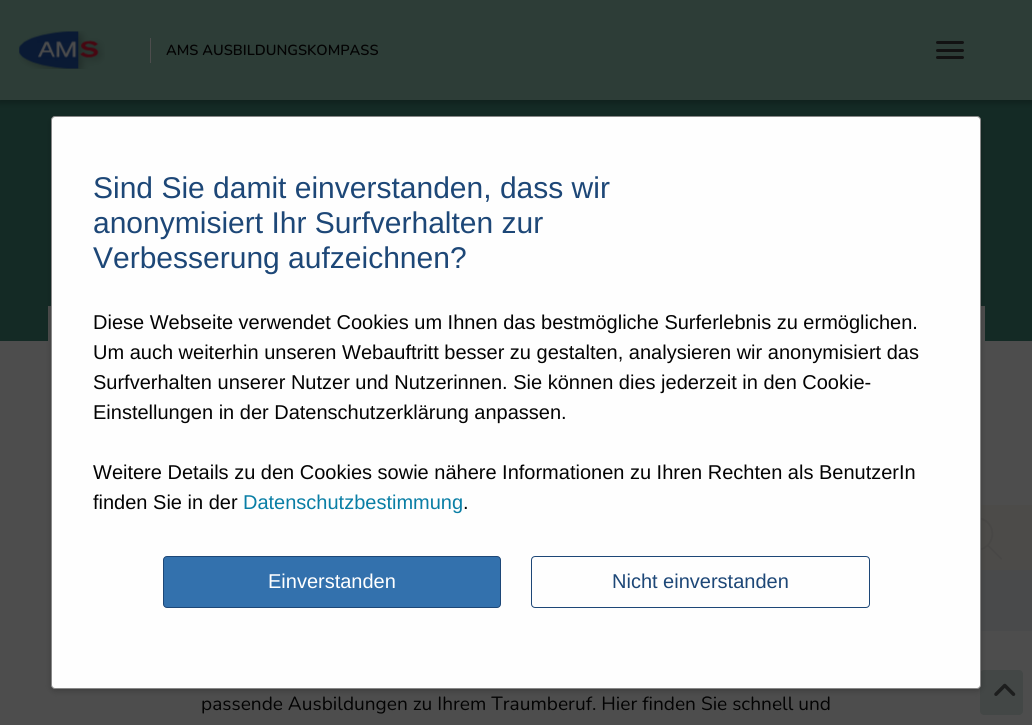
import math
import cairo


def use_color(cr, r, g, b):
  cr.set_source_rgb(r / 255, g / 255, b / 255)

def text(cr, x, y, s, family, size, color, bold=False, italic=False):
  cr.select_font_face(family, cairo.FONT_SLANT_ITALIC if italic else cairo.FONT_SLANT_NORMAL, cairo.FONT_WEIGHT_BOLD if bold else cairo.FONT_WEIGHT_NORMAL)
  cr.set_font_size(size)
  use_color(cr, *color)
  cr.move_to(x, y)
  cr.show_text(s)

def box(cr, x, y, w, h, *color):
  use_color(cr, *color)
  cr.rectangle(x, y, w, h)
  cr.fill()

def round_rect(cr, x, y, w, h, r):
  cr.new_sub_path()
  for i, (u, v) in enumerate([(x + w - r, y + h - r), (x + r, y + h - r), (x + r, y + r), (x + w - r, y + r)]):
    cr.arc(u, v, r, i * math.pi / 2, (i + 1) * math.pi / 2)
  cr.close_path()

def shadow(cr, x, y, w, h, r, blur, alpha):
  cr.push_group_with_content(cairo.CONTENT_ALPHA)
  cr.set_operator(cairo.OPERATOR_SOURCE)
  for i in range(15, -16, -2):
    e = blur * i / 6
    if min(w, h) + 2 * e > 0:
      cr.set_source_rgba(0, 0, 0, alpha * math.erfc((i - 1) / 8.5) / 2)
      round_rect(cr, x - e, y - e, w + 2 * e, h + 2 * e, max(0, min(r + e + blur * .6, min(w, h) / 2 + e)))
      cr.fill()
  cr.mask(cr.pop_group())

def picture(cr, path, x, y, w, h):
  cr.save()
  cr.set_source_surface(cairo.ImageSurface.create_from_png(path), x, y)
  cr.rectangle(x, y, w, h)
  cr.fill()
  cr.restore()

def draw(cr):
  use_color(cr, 77, 77, 77)
  cr.paint()
  box(cr, 0, 100, 1032, 241, 20, 42, 37)
  use_color(cr, 0, 0, 0)
  shadow(cr, -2, -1, 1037, 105, 0, 2.5, 0.2)
  box(cr, 0, 0, 1032, 100, 45, 61, 55)
  picture(cr, "img_01.png", 18, 31, 87, 38)
  box(cr, 150, 38, 1, 25, 77, 77, 77)
  use_color(cr, 18, 18, 18)
  round_rect(cr, 936, 41, 28, 3, 1.5)
  cr.fill()
  round_rect(cr, 936, 49, 28, 3, 1.5)
  cr.fill()
  round_rect(cr, 936, 56, 28, 3, 1.5)
  cr.fill()
  box(cr, 48, 306, 937, 35, 77, 77, 77)
  cr.set_source_rgba(0.302, 0.231, 0, 0.05)
  cr.rectangle(981, 505, 51, 65)
  cr.fill()
  picture(cr, "img_02.png", 981, 518, 21, 42)
  box(cr, 981, 570, 51, 61, 73, 74, 75)
  use_color(cr, 67, 71, 70)
  round_rect(cr, 980, 670, 43, 45, 4)
  cr.fill()
  use_color(cr, 0, 0, 0)
  shadow(cr, 51, 119, 930, 572, 4, 3, 0.2)
  use_color(cr, 254, 254, 254)
  round_rect(cr, 51.5, 116.5, 929, 572, 3.5)
  cr.fill_preserve()
  use_color(cr, 136, 136, 136)
  cr.set_line_width(1)
  cr.stroke()
  use_color(cr, 51, 113, 173)
  round_rect(cr, 163.5, 556.5, 337, 51, 3.5)
  cr.fill_preserve()
  use_color(cr, 29, 71, 119)
  cr.stroke()
  round_rect(cr, 531.5, 556.5, 338, 51, 3.5)
  cr.stroke()
  picture(cr, "img_03.png", 994, 683, 22, 13)
  text(cr, 166, 55, "AMS AUSBILDUNGSKOMPASS", "Nunito SemiBold", 14.6, (3, 3, 3))
  text(cr, 93, 198, "Sind Sie damit einverstanden, dass wir", "Liberation Sans", 30, (29, 71, 119))
  text(cr, 93, 233, "anonymisiert Ihr Surfverhalten zur", "Liberation Sans", 30, (29, 71, 119))
  text(cr, 93, 268, "Verbesserung aufzeichnen?", "Liberation Sans", 30, (29, 71, 119))
  text(cr, 93, 329, "Diese Webseite verwendet Cookies um Ihnen das bestmögliche Surferlebnis zu ermöglichen.", "Liberation Sans", 20, (3, 3, 3))
  text(cr, 93, 359, "Um auch weiterhin unseren Webauftritt besser zu gestalten, analysieren wir anonymisiert das", "Liberation Sans", 20, (3, 3, 3))
  text(cr, 93, 389, "Surfverhalten unserer Nutzer und Nutzerinnen. Sie können dies jederzeit in den Cookie-", "Liberation Sans", 20, (3, 3, 3))
  text(cr, 93, 419, "Einstellungen in der Datenschutzerklärung anpassen.", "Liberation Sans", 20, (3, 3, 3))
  text(cr, 93, 479, "Weitere Details zu den Cookies sowie nähere Informationen zu Ihren Rechten als BenutzerIn", "Liberation Sans", 20, (3, 3, 3))
  text(cr, 93, 509, "finden Sie in der", "Liberation Sans", 20, (3, 3, 3))
  text(cr, 243, 509, "Datenschutzbestimmung", "Liberation Sans", 20, (9, 126, 165))
  text(cr, 463, 509, ".", "Liberation Sans", 20, (3, 3, 3))
  text(cr, 268, 588, "Einverstanden", "Liberation Sans", 20, (255, 255, 255))
  text(cr, 612, 588, "Nicht einverstanden", "Liberation Sans", 20, (29, 71, 119))
  text(cr, 201, 710, "passende Ausbildungen zu Ihrem Traumberuf. Hier finden Sie schnell und", "Nunito", 19.1, (3, 3, 3))


surface = cairo.ImageSurface(cairo.FORMAT_RGB24, 1032, 725)
cr = cairo.Context(surface)
options = cairo.FontOptions()
options.set_hint_metrics(cairo.HINT_METRICS_OFF)
options.set_hint_style(cairo.HINT_STYLE_NONE)
cr.set_font_options(options)
cr.set_miter_limit(4)
draw(cr)
surface.write_to_png("out.png")
